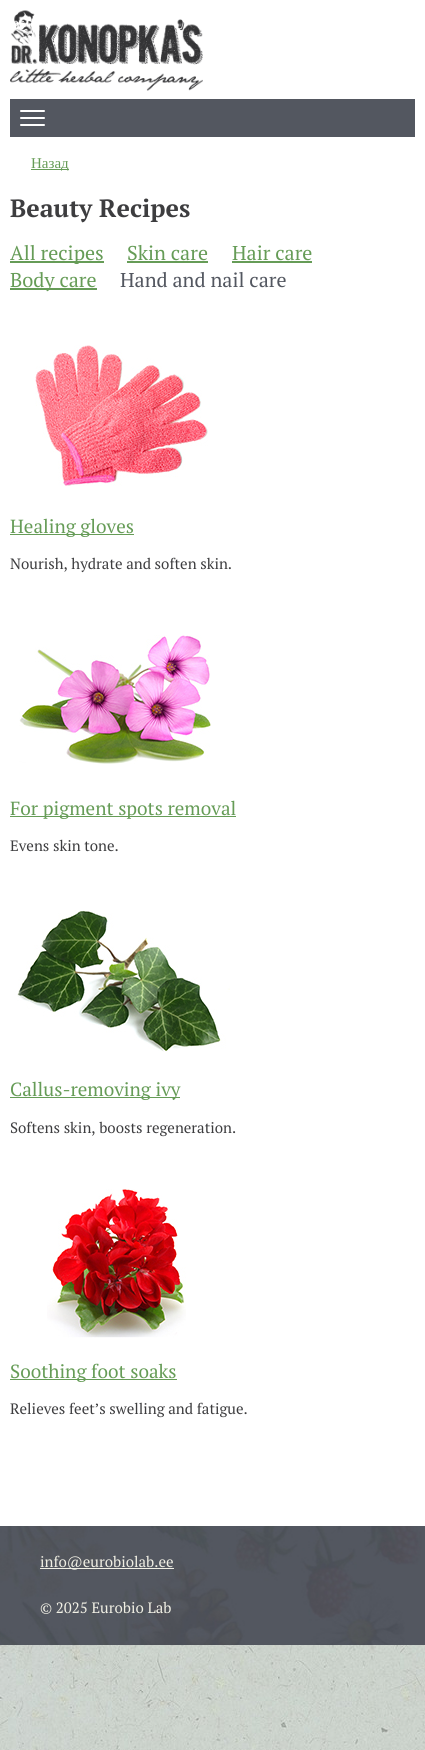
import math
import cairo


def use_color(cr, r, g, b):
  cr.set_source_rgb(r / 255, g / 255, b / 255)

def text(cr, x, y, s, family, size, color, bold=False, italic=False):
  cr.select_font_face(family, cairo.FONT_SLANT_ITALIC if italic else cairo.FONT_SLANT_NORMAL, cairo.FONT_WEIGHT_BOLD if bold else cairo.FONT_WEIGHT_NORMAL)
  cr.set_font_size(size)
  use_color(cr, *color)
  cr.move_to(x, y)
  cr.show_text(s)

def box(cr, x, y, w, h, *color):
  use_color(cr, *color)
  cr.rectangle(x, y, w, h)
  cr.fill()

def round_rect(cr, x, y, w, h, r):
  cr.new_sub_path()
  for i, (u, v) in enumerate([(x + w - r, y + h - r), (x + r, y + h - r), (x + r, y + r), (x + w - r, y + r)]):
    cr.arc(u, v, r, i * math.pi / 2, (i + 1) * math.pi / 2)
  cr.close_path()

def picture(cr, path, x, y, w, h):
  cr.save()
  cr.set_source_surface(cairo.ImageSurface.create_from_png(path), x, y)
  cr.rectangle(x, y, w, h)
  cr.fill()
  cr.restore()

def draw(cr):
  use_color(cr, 255, 255, 255)
  cr.paint()
  picture(cr, "img_01.png", 0, 1645, 425, 105)
  picture(cr, "img_02.png", 10, 10, 193, 81)
  box(cr, 10, 99, 405, 38, 83, 87, 96)
  use_color(cr, 255, 255, 255)
  round_rect(cr, 20, 110, 25, 2, 1)
  cr.fill()
  round_rect(cr, 20, 117, 25, 2, 1)
  cr.fill()
  round_rect(cr, 20, 124, 25, 2, 1)
  cr.fill()
  box(cr, 31, 169, 38, 1, 102, 156, 87)
  box(cr, 10, 261, 94, 2, 102, 156, 87)
  box(cr, 127, 261, 81, 2, 102, 156, 87)
  box(cr, 232, 261, 80, 2, 102, 156, 87)
  box(cr, 10, 288, 87, 2, 102, 156, 87)
  picture(cr, "img_03.png", 35, 345, 173, 141)
  box(cr, 10, 534, 124, 1, 102, 156, 87)
  picture(cr, "img_04.png", 19, 635, 192, 129)
  box(cr, 10, 816, 226, 1, 102, 156, 87)
  picture(cr, "img_05.png", 17, 910, 213, 142)
  box(cr, 10, 1097, 170, 1, 102, 156, 87)
  picture(cr, "img_06.png", 47, 1189, 139, 149)
  box(cr, 10, 1379, 167, 1, 102, 156, 87)
  picture(cr, "img_07.png", 0, 1526, 425, 119)
  box(cr, 40, 1568, 134, 1, 240, 239, 228)
  text(cr, 31, 168, "Назад", "Liberation Serif", 15, (102, 156, 87))
  text(cr, 10, 217, "Beauty Recipes", "PT Serif", 25, (61, 61, 63), bold=True)
  text(cr, 10, 260, "All recipes", "PT Serif", 20, (102, 156, 87))
  text(cr, 127, 260, "Skin care", "PT Serif", 20, (102, 156, 87))
  text(cr, 232, 260, "Hair care", "PT Serif", 20, (102, 156, 87))
  text(cr, 10, 287, "Body care", "PT Serif", 20, (102, 156, 87))
  text(cr, 120, 287, "Hand and nail care", "PT Serif", 20, (83, 87, 96))
  text(cr, 10, 533, "Healing gloves", "PT Serif", 19, (102, 156, 87))
  text(cr, 10, 569, "Nourish, hydrate and soften skin.", "PT Serif", 15, (61, 61, 63))
  text(cr, 10, 815, "For pigment spots removal", "PT Serif", 19, (102, 156, 87))
  text(cr, 10, 851, "Evens skin tone.", "PT Serif", 15, (61, 61, 63))
  text(cr, 10, 1096, "Callus-removing ivy", "PT Serif", 19, (102, 156, 87))
  text(cr, 10, 1133, "Softens skin, boosts regeneration.", "PT Serif", 15, (61, 61, 63))
  text(cr, 10, 1378, "Soothing foot soaks", "PT Serif", 19, (102, 156, 87))
  text(cr, 10, 1414, "Relieves feet’s swelling and fatigue.", "PT Serif", 15, (61, 61, 63))
  text(cr, 40, 1567, "info@eurobiolab.ee", "PT Serif", 15, (240, 239, 228))
  text(cr, 40, 1613, "© 2025 Eurobio Lab", "PT Serif", 15, (240, 239, 228))


surface = cairo.ImageSurface(cairo.FORMAT_RGB24, 425, 1750)
cr = cairo.Context(surface)
options = cairo.FontOptions()
options.set_hint_metrics(cairo.HINT_METRICS_OFF)
options.set_hint_style(cairo.HINT_STYLE_NONE)
cr.set_font_options(options)
cr.set_miter_limit(4)
draw(cr)
surface.write_to_png("out.png")
